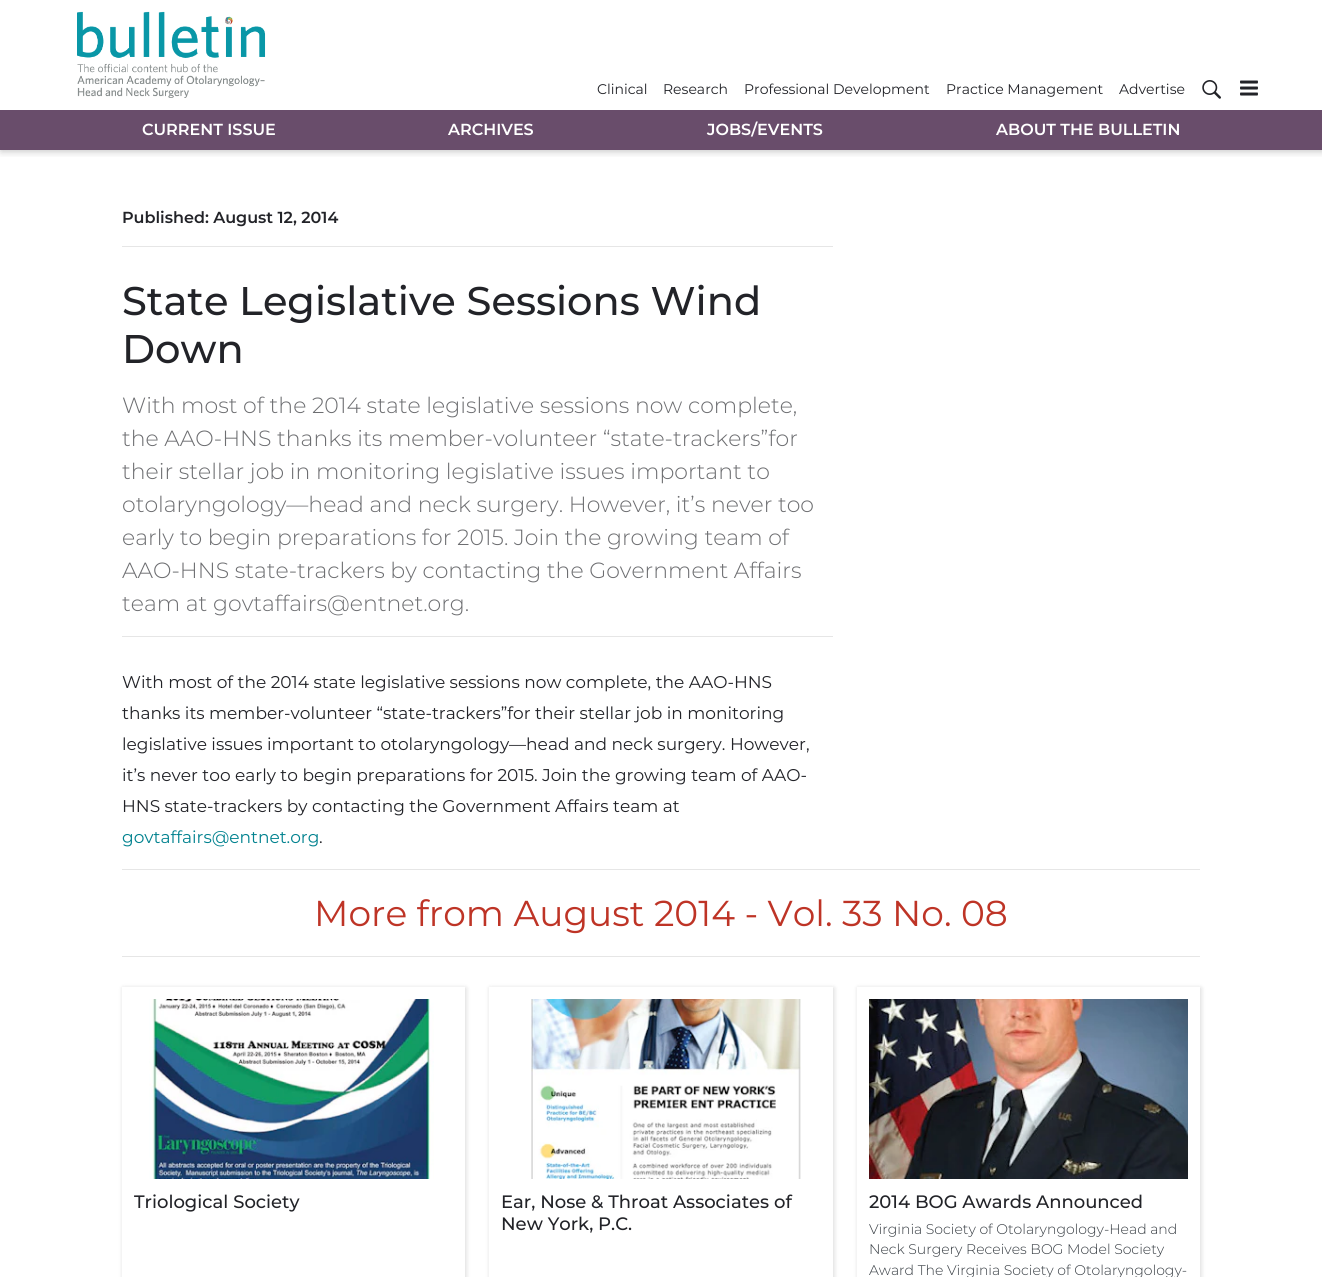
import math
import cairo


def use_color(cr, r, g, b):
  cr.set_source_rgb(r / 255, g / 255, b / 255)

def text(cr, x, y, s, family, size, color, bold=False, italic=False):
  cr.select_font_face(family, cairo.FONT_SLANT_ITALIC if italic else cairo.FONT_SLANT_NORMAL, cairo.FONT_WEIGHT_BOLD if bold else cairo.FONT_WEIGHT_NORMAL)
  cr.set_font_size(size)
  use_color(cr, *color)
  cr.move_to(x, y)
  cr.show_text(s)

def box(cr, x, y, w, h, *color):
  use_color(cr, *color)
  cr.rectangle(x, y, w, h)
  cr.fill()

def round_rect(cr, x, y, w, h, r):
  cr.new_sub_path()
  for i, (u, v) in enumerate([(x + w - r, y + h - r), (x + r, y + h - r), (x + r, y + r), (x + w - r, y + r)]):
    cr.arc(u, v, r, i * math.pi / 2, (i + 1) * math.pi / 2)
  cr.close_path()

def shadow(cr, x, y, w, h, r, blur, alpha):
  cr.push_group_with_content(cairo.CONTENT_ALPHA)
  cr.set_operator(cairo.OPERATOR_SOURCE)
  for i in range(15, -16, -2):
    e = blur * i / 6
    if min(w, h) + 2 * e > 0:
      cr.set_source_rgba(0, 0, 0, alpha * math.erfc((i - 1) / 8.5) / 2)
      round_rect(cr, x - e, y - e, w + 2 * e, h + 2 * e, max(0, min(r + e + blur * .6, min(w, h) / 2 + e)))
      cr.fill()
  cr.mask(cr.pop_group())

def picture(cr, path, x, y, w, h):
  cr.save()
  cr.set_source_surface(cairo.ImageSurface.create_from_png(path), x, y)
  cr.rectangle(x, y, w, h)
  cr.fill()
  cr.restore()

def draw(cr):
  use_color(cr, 255, 255, 255)
  cr.paint()
  cr.save()
  cr.rectangle(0, 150, 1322, 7)
  cr.clip()
  use_color(cr, 0, 0, 0)
  shadow(cr, 1, 1, 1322, 150, 0, 4, 0.25)
  cr.restore()
  picture(cr, "img_01.png", 77, 11, 189, 87)
  picture(cr, "img_02.png", 1202, 80, 19, 19)
  picture(cr, "img_03.png", 1240, 80, 18, 16)
  box(cr, 0, 110, 1322, 40, 105, 77, 107)
  box(cr, 122, 246, 711, 1, 230, 230, 230)
  box(cr, 122, 636, 711, 1, 230, 230, 230)
  box(cr, 122, 869, 1078, 1, 230, 230, 230)
  box(cr, 122, 956, 1078, 1, 230, 230, 230)
  cr.save()
  cr.set_fill_rule(cairo.FILL_RULE_EVEN_ODD)
  cr.new_path()
  cr.move_to(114, 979)
  cr.line_to(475, 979)
  cr.line_to(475, 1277)
  cr.line_to(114, 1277)
  cr.close_path()
  cr.move_to(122, 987)
  cr.line_to(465, 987)
  cr.line_to(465, 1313)
  cr.line_to(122, 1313)
  cr.close_path()
  cr.clip()
  use_color(cr, 0, 0, 0)
  shadow(cr, 123, 988, 343, 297, 0, 2.5, 0.15)
  cr.restore()
  picture(cr, "img_04.png", 149, 999, 285, 180)
  cr.save()
  cr.set_fill_rule(cairo.FILL_RULE_EVEN_ODD)
  cr.new_path()
  cr.move_to(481, 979)
  cr.line_to(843, 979)
  cr.line_to(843, 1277)
  cr.line_to(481, 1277)
  cr.close_path()
  cr.move_to(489, 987)
  cr.line_to(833, 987)
  cr.line_to(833, 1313)
  cr.line_to(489, 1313)
  cr.close_path()
  cr.clip()
  use_color(cr, 0, 0, 0)
  shadow(cr, 490, 988, 344, 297, 0, 2.5, 0.15)
  cr.restore()
  picture(cr, "img_05.png", 531, 999, 270, 180)
  cr.save()
  cr.set_fill_rule(cairo.FILL_RULE_EVEN_ODD)
  cr.new_path()
  cr.move_to(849, 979)
  cr.line_to(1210, 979)
  cr.line_to(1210, 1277)
  cr.line_to(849, 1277)
  cr.close_path()
  cr.move_to(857, 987)
  cr.line_to(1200, 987)
  cr.line_to(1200, 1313)
  cr.line_to(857, 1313)
  cr.close_path()
  cr.clip()
  use_color(cr, 0, 0, 0)
  shadow(cr, 858, 988, 343, 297, 0, 2.5, 0.15)
  cr.restore()
  picture(cr, "img_06.png", 869, 999, 319, 180)
  text(cr, 597, 94, "Clinical", "Montserrat", 14, (34, 35, 40))
  text(cr, 663, 94, "Research", "Montserrat", 14, (34, 35, 40))
  text(cr, 744, 94, "Professional Development", "Montserrat", 14, (34, 35, 40))
  text(cr, 946, 94, "Practice Management", "Montserrat", 14, (34, 35, 40))
  text(cr, 1119, 94, "Advertise", "Montserrat", 14, (34, 35, 40))
  text(cr, 142, 135, "CURRENT ISSUE", "Montserrat SemiBold", 16, (255, 255, 255))
  text(cr, 448, 135, "ARCHIVES", "Montserrat SemiBold", 16, (255, 255, 255))
  text(cr, 707, 135, "JOBS/EVENTS", "Montserrat SemiBold", 16, (255, 255, 255))
  text(cr, 996, 135, "ABOUT THE BULLETIN", "Montserrat SemiBold", 16, (255, 255, 255))
  text(cr, 122, 223, "Published: August 12, 2014", "Montserrat SemiBold", 16, (34, 35, 40))
  text(cr, 122, 315, "State Legislative Sessions Wind", "Montserrat Medium", 40, (34, 35, 40))
  text(cr, 122, 363, "Down", "Montserrat Medium", 40, (34, 35, 40))
  text(cr, 122, 413, "With most of the 2014 state legislative sessions now complete,", "Montserrat Light", 22, (109, 110, 113))
  text(cr, 122, 446, "the AAO-HNS thanks its member-volunteer “state-trackers”for", "Montserrat Light", 22, (109, 110, 113))
  text(cr, 122, 479, "their stellar job in monitoring legislative issues important to", "Montserrat Light", 22, (109, 110, 113))
  text(cr, 122, 512, "otolaryngology—head and neck surgery. However, it’s never too", "Montserrat Light", 22, (109, 110, 113))
  text(cr, 122, 545, "early to begin preparations for 2015. Join the growing team of", "Montserrat Light", 22, (109, 110, 113))
  text(cr, 122, 578, "AAO-HNS state-trackers by contacting the Government Affairs", "Montserrat Light", 22, (109, 110, 113))
  text(cr, 122, 611, "team at govtaffairs@entnet.org.", "Montserrat Light", 22, (109, 110, 113))
  text(cr, 122, 688, "With most of the 2014 state legislative sessions now complete, the AAO-HNS", "Montserrat", 17, (34, 35, 40))
  text(cr, 122, 719, "thanks its member-volunteer “state-trackers”for their stellar job in monitoring", "Montserrat", 17, (34, 35, 40))
  text(cr, 122, 750, "legislative issues important to otolaryngology—head and neck surgery. However,", "Montserrat", 17, (34, 35, 40))
  text(cr, 122, 781, "it’s never too early to begin preparations for 2015. Join the growing team of AAO-", "Montserrat", 17, (34, 35, 40))
  text(cr, 122, 812, "HNS state-trackers by contacting the Government Affairs team at", "Montserrat", 17, (34, 35, 40))
  text(cr, 122, 843, "govtaffairs@entnet.org", "Montserrat", 17, (1, 130, 143))
  text(cr, 319, 843, ".", "Montserrat", 17, (34, 35, 40))
  text(cr, 314, 926, "More from August 2014 - Vol. 33 No. 08", "Montserrat", 36, (190, 52, 38))
  text(cr, 134, 1208, "Triological Society", "Montserrat Medium", 18, (34, 35, 40))
  text(cr, 501, 1208, "Ear, Nose & Throat Associates of", "Montserrat Medium", 18, (34, 35, 40))
  text(cr, 501, 1230, "New York, P.C.", "Montserrat Medium", 18, (34, 35, 40))
  text(cr, 869, 1208, "2014 BOG Awards Announced", "Montserrat Medium", 18, (34, 35, 40))
  text(cr, 869, 1234, "Virginia Society of Otolaryngology-Head and", "Montserrat Light", 14, (52, 58, 64))
  text(cr, 869, 1254, "Neck Surgery Receives BOG Model Society", "Montserrat Light", 14, (52, 58, 64))
  text(cr, 869, 1275, "Award The Virginia Society of Otolaryngology-", "Montserrat Light", 14, (52, 58, 64))


surface = cairo.ImageSurface(cairo.FORMAT_RGB24, 1322, 1277)
cr = cairo.Context(surface)
options = cairo.FontOptions()
options.set_hint_metrics(cairo.HINT_METRICS_OFF)
options.set_hint_style(cairo.HINT_STYLE_NONE)
cr.set_font_options(options)
cr.set_miter_limit(4)
draw(cr)
surface.write_to_png("out.png")
